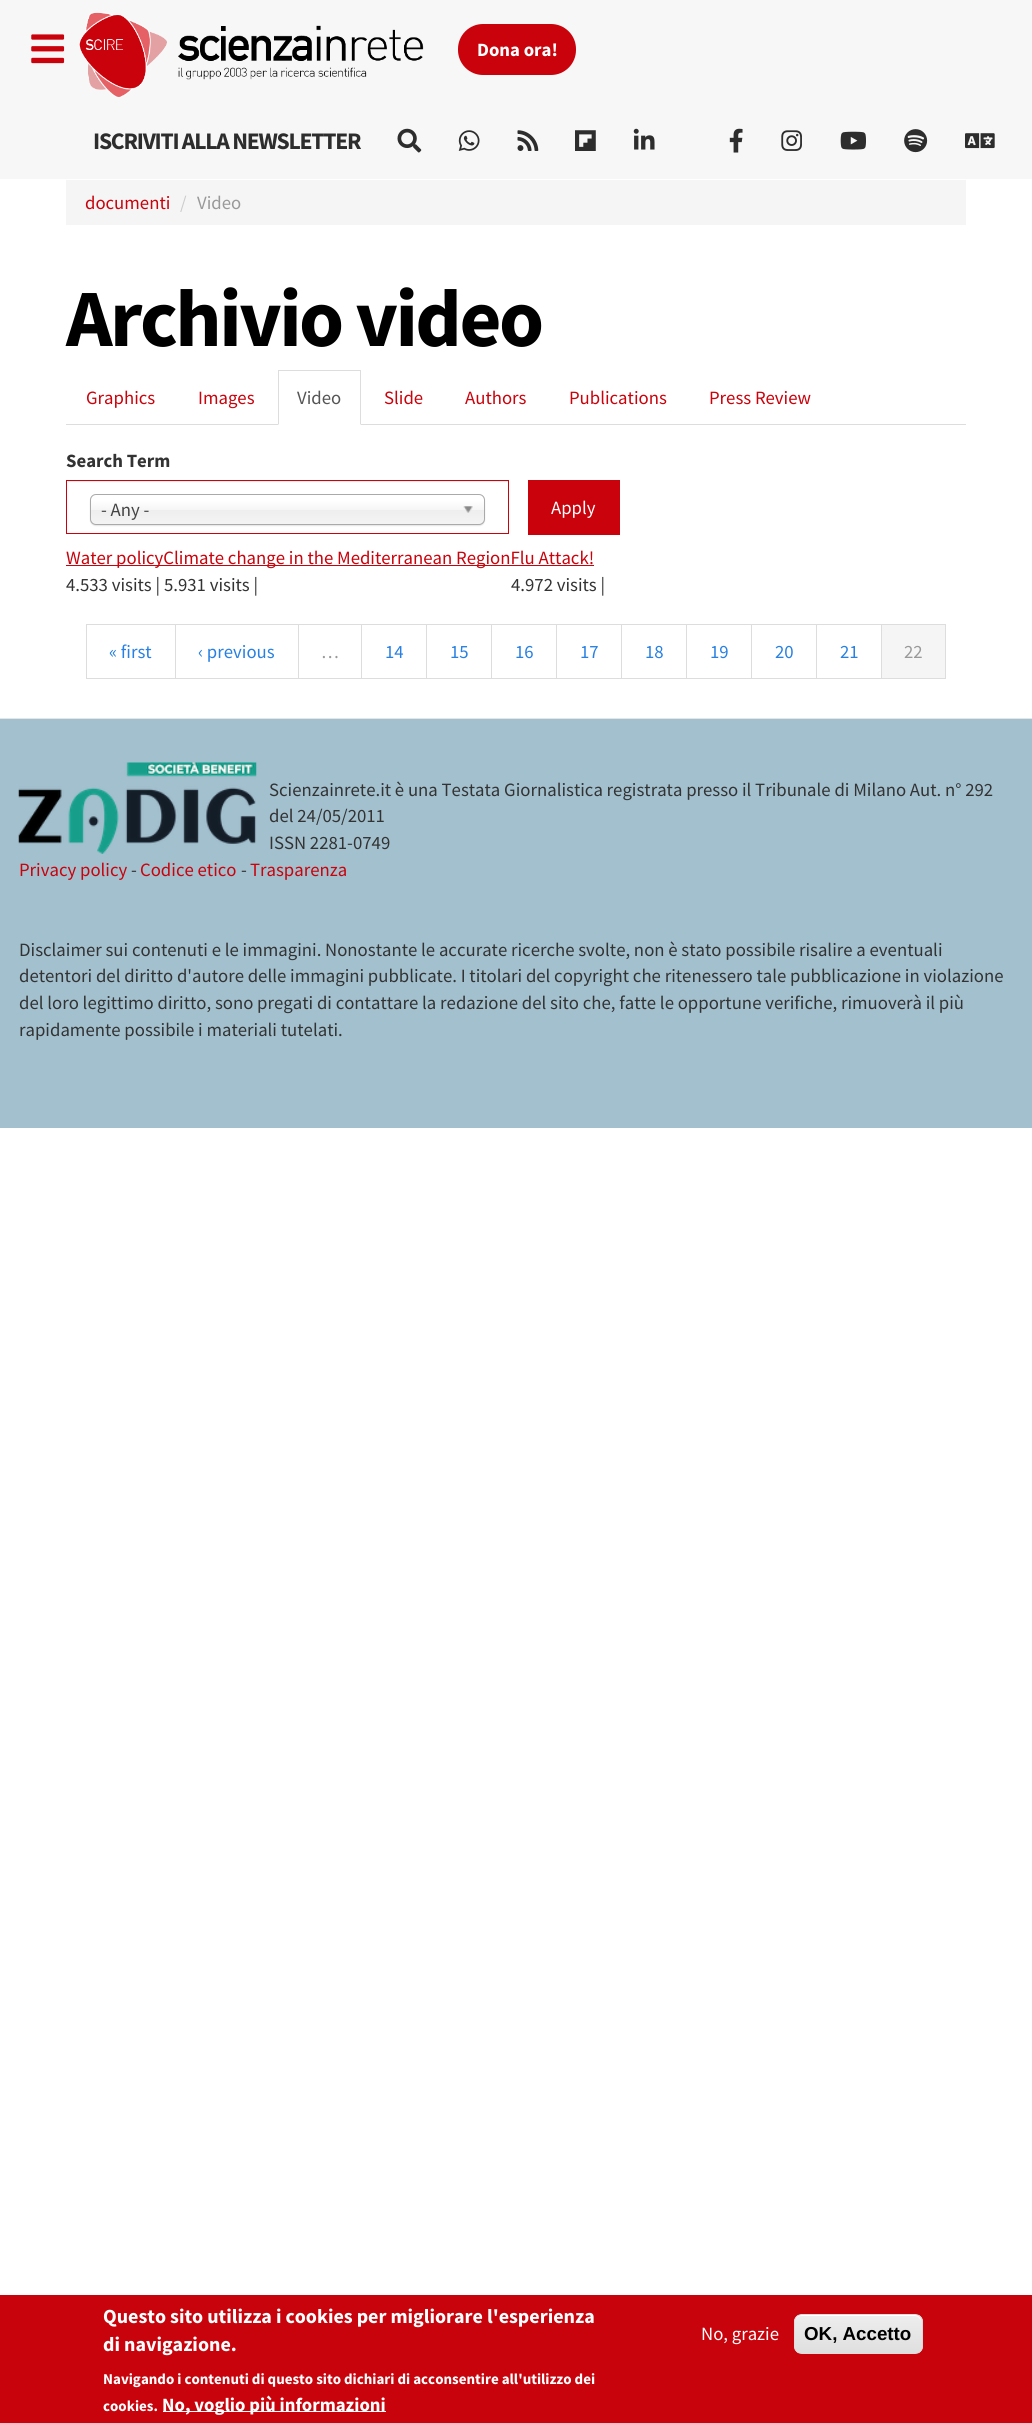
import math
import cairo


def use_color(cr, r, g, b):
  cr.set_source_rgb(r / 255, g / 255, b / 255)

def text(cr, x, y, s, family, size, color, bold=False, italic=False):
  cr.select_font_face(family, cairo.FONT_SLANT_ITALIC if italic else cairo.FONT_SLANT_NORMAL, cairo.FONT_WEIGHT_BOLD if bold else cairo.FONT_WEIGHT_NORMAL)
  cr.set_font_size(size)
  use_color(cr, *color)
  cr.move_to(x, y)
  cr.show_text(s)

def spaced_text(cr, x, y, s, letter, word):
  cr.move_to(x, y)
  for ch in s:
    cr.show_text(ch)
    cr.rel_move_to(letter + word * (ch == ' '), 0)

def box(cr, x, y, w, h, *color):
  use_color(cr, *color)
  cr.rectangle(x, y, w, h)
  cr.fill()

def round_rect(cr, x, y, w, h, r):
  cr.new_sub_path()
  for i, (u, v) in enumerate([(x + w - r, y + h - r), (x + r, y + h - r), (x + r, y + r), (x + w - r, y + r)]):
    cr.arc(u, v, r, i * math.pi / 2, (i + 1) * math.pi / 2)
  cr.close_path()

def shadow(cr, x, y, w, h, r, blur, alpha):
  cr.push_group_with_content(cairo.CONTENT_ALPHA)
  cr.set_operator(cairo.OPERATOR_SOURCE)
  for i in range(15, -16, -2):
    e = blur * i / 6
    if min(w, h) + 2 * e > 0:
      cr.set_source_rgba(0, 0, 0, alpha * math.erfc((i - 1) / 8.5) / 2)
      round_rect(cr, x - e, y - e, w + 2 * e, h + 2 * e, max(0, min(r + e + blur * .6, min(w, h) / 2 + e)))
      cr.fill()
  cr.mask(cr.pop_group())

def picture(cr, path, x, y, w, h):
  cr.save()
  cr.set_source_surface(cairo.ImageSurface.create_from_png(path), x, y)
  cr.rectangle(x, y, w, h)
  cr.fill()
  cr.restore()

def draw(cr):
  use_color(cr, 255, 255, 255)
  cr.paint()
  box(cr, 0, 0, 1032, 179, 247, 247, 247)
  picture(cr, "img_01.png", 31, 34, 34, 30)
  picture(cr, "img_02.png", 79, 12, 345, 86)
  use_color(cr, 201, 2, 11)
  round_rect(cr, 458, 24, 118, 51, 25)
  cr.fill()
  picture(cr, "img_03.png", 397, 128, 25, 25)
  picture(cr, "img_04.png", 458, 130, 22, 21)
  picture(cr, "img_05.png", 517, 130, 22, 21)
  picture(cr, "img_06.png", 575, 130, 21, 21)
  picture(cr, "img_07.png", 633, 128, 22, 22)
  picture(cr, "img_08.png", 729, 128, 14, 25)
  picture(cr, "img_09.png", 781, 130, 21, 21)
  picture(cr, "img_10.png", 840, 131, 26, 19)
  picture(cr, "img_11.png", 904, 129, 24, 24)
  picture(cr, "img_12.png", 965, 133, 30, 16)
  box(cr, 66, 180, 900, 45, 245, 245, 245)
  box(cr, 66, 424, 900, 1, 221, 221, 221)
  box(cr, 278, 424, 83, 1, 255, 255, 255)
  box(cr, 278, 370, 83, 1, 221, 221, 221)
  cr.new_path()
  cr.move_to(361, 370)
  cr.line_to(361, 425)
  cr.line_to(360, 424)
  cr.line_to(360, 371)
  cr.close_path()
  cr.fill()
  cr.new_path()
  cr.move_to(278, 425)
  cr.line_to(278, 370)
  cr.line_to(279, 371)
  cr.line_to(279, 424)
  cr.close_path()
  cr.fill()
  box(cr, 68, 481, 440, 1, 236, 236, 236)
  cr.rectangle(66.5, 480.5, 442, 53)
  use_color(cr, 201, 2, 11)
  cr.set_line_width(1)
  cr.stroke()
  use_color(cr, 0, 0, 0)
  shadow(cr, 90, 495, 395, 31, 6, 0.5, 0.1)
  gradient = cairo.LinearGradient(288, 495, 288, 524)
  gradient.add_color_stop_rgba(0.2, 1, 1, 1, 1)
  gradient.add_color_stop_rgba(0.5, 0.965, 0.965, 0.965, 1)
  gradient.add_color_stop_rgba(0.52, 0.933, 0.933, 0.933, 1)
  gradient.add_color_stop_rgba(1, 0.957, 0.957, 0.957, 1)
  cr.set_source(gradient)
  round_rect(cr, 91, 495, 393, 29, 5)
  cr.fill()
  round_rect(cr, 90.5, 494.5, 394, 30, 5.5)
  use_color(cr, 170, 170, 170)
  cr.stroke()
  picture(cr, "img_13.png", 463, 506, 10, 7)
  box(cr, 528, 480, 92, 55, 201, 2, 11)
  box(cr, 66, 565, 528, 1, 201, 2, 11)
  cr.rectangle(86.5, 624.5, 89, 54)
  use_color(cr, 221, 221, 221)
  cr.stroke()
  cr.rectangle(175.5, 624.5, 123, 54)
  cr.stroke()
  cr.rectangle(298.5, 624.5, 64, 54)
  cr.stroke()
  box(cr, 362, 625, 1, 53, 255, 255, 255)
  cr.rectangle(361.5, 624.5, 66, 54)
  use_color(cr, 221, 221, 221)
  cr.stroke()
  box(cr, 427, 625, 1, 53, 255, 255, 255)
  cr.rectangle(426.5, 624.5, 66, 54)
  use_color(cr, 221, 221, 221)
  cr.stroke()
  box(cr, 492, 625, 1, 53, 255, 255, 255)
  cr.rectangle(491.5, 624.5, 66, 54)
  use_color(cr, 221, 221, 221)
  cr.stroke()
  box(cr, 557, 625, 1, 53, 255, 255, 255)
  cr.rectangle(556.5, 624.5, 66, 54)
  use_color(cr, 221, 221, 221)
  cr.stroke()
  box(cr, 622, 625, 1, 53, 255, 255, 255)
  cr.rectangle(621.5, 624.5, 66, 54)
  use_color(cr, 221, 221, 221)
  cr.stroke()
  box(cr, 687, 625, 1, 53, 255, 255, 255)
  cr.rectangle(686.5, 624.5, 66, 54)
  use_color(cr, 221, 221, 221)
  cr.stroke()
  box(cr, 752, 625, 1, 53, 255, 255, 255)
  cr.rectangle(751.5, 624.5, 66, 54)
  use_color(cr, 221, 221, 221)
  cr.stroke()
  box(cr, 817, 625, 1, 53, 255, 255, 255)
  cr.rectangle(816.5, 624.5, 66, 54)
  use_color(cr, 221, 221, 221)
  cr.stroke()
  use_color(cr, 245, 245, 245)
  cr.rectangle(881.5, 624.5, 64, 54)
  cr.fill_preserve()
  use_color(cr, 221, 221, 221)
  cr.stroke()
  box(cr, 0, 719, 1032, 409, 163, 192, 206)
  box(cr, 0, 718, 1032, 1, 229, 229, 229)
  picture(cr, "img_14.png", 18, 762, 239, 92)
  box(cr, 0, 2295, 1032, 128, 201, 3, 11)
  box(cr, 163, 2411, 223, 1, 255, 255, 255)
  cr.save()
  round_rect(cr, 794, 2314, 129, 40, 8)
  cr.clip()
  gradient = cairo.LinearGradient(858, 2315, 858, 2353)
  gradient.add_color_stop_rgba(0.05, 0.929, 0.929, 0.929, 1)
  gradient.add_color_stop_rgba(1, 0.875, 0.875, 0.875, 1)
  cr.set_source(gradient)
  cr.rectangle(794, 2315, 129, 38)
  cr.fill()
  cr.restore()
  cr.new_path()
  cr.move_to(801, 2316)
  cr.line_to(915, 2316)
  cr.curve_to(918, 2316, 921, 2319, 921, 2322)
  cr.curve_to(921, 2310, 902, 2315, 896, 2315)
  cr.line_to(820, 2315)
  cr.curve_to(814, 2315, 795, 2310, 795, 2322)
  cr.curve_to(795, 2319, 798, 2316, 801, 2316)
  cr.close_path()
  cr.fill()
  round_rect(cr, 794.5, 2314.5, 128, 39, 7.5)
  use_color(cr, 220, 220, 220)
  cr.stroke()
  text(cr, 477, 56, "Dona ora!", "Source Sans Pro", 18.75, (255, 255, 255), bold=True)
  cr.set_font_size(23.75)
  use_color(cr, 45, 45, 45)
  spaced_text(cr, 93, 149, "ISCRIVITI ALLA NEWSLETTER", -1.25, 0)
  text(cr, 85, 209, "documenti", "Source Sans Pro", 18.75, (201, 2, 11))
  text(cr, 180, 209, "/", "Source Sans Pro", 18.75, (204, 204, 204))
  text(cr, 197, 209, "Video", "Source Sans Pro", 18.75, (153, 153, 153))
  cr.select_font_face("Source Sans Pro", cairo.FONT_SLANT_NORMAL, cairo.FONT_WEIGHT_BOLD)
  cr.set_font_size(81.25)
  use_color(cr, 0, 0, 0)
  spaced_text(cr, 66, 346, "Archivio video", -2.5, 0)
  text(cr, 86, 404, "Graphics", "Source Sans Pro", 18.75, (201, 2, 11))
  text(cr, 198, 404, "Images", "Source Sans Pro", 18.75, (201, 2, 11))
  text(cr, 297, 404, "Video", "Source Sans Pro", 18.75, (85, 85, 85))
  text(cr, 384, 404, "Slide", "Source Sans Pro", 18.75, (201, 2, 11))
  text(cr, 465, 404, "Authors", "Source Sans Pro", 18.75, (201, 2, 11))
  text(cr, 569, 404, "Publications", "Source Sans Pro", 18.75, (201, 2, 11))
  text(cr, 709, 404, "Press Review", "Source Sans Pro", 18.75, (201, 2, 11))
  text(cr, 66, 467, "Search Term", "Source Sans Pro", 18.75, (51, 51, 51), bold=True)
  text(cr, 101, 516, "- Any -", "Source Sans Pro", 18.75, (68, 68, 68))
  text(cr, 551, 514, "Apply", "Source Sans Pro", 18.75, (255, 255, 255))
  text(cr, 66, 564, "Water policyClimate change in the Mediterranean RegionFlu Attack!", "Source Sans Pro", 18.75, (201, 2, 11))
  text(cr, 66, 591, "4.533 visits |", "Source Sans Pro", 18.75, (51, 51, 51))
  text(cr, 164, 591, "5.931 visits |", "Source Sans Pro", 18.75, (51, 51, 51))
  text(cr, 511, 591, "4.972 visits |", "Source Sans Pro", 18.75, (51, 51, 51))
  text(cr, 109, 658, "« first", "Source Sans Pro", 18.75, (39, 128, 227))
  text(cr, 198, 658, "‹ previous", "Source Sans Pro", 18.75, (39, 128, 227))
  text(cr, 321, 658, "…", "Source Sans Pro", 18.75, (153, 153, 153))
  text(cr, 385, 658, "14", "Source Sans Pro", 18.75, (39, 128, 227))
  text(cr, 450, 658, "15", "Source Sans Pro", 18.75, (39, 128, 227))
  text(cr, 515, 658, "16", "Source Sans Pro", 18.75, (39, 128, 227))
  text(cr, 580, 658, "17", "Source Sans Pro", 18.75, (39, 128, 227))
  text(cr, 645, 658, "18", "Source Sans Pro", 18.75, (39, 128, 227))
  text(cr, 710, 658, "19", "Source Sans Pro", 18.75, (39, 128, 227))
  text(cr, 775, 658, "20", "Source Sans Pro", 18.75, (39, 128, 227))
  text(cr, 840, 658, "21", "Source Sans Pro", 18.75, (39, 128, 227))
  text(cr, 904, 658, "22", "Source Sans Pro", 18.75, (153, 153, 153))
  text(cr, 269, 796, "Scienzainrete.it è una Testata Giornalistica registrata presso il Tribunale di Milano Aut. n° 292", "Source Sans Pro", 18.75, (51, 51, 51))
  text(cr, 269, 822, "del 24/05/2011", "Source Sans Pro", 18.75, (51, 51, 51))
  text(cr, 269, 849, "ISSN 2281-0749", "Source Sans Pro", 18.75, (51, 51, 51))
  text(cr, 19, 876, "Privacy policy", "Source Sans Pro", 18.75, (201, 2, 11))
  text(cr, 131, 876, "-", "Source Sans Pro", 18.75, (51, 51, 51))
  text(cr, 140, 876, "Codice etico", "Source Sans Pro", 18.75, (201, 2, 11))
  text(cr, 241, 876, "-", "Source Sans Pro", 18.75, (51, 51, 51))
  text(cr, 250, 876, "Trasparenza", "Source Sans Pro", 18.75, (201, 2, 11))
  text(cr, 19, 956, "Disclaimer sui contenuti e le immagini. Nonostante le accurate ricerche svolte, non è stato possibile risalire a eventuali", "Source Sans Pro", 18.75, (51, 51, 51))
  text(cr, 19, 982, "detentori del diritto d'autore delle immagini pubblicate. I titolari del copyright che ritenessero tale pubblicazione in violazione", "Source Sans Pro", 18.75, (51, 51, 51))
  text(cr, 19, 1009, "del loro legittimo diritto, sono pregati di contattare la redazione del sito che, fatte le opportune verifiche, rimuoverà il più", "Source Sans Pro", 18.75, (51, 51, 51))
  text(cr, 19, 1036, "rapidamente possibile i materiali tutelati.", "Source Sans Pro", 18.75, (51, 51, 51))
  text(cr, 103, 2323, "Questo sito utilizza i cookies per migliorare l'esperienza", "Source Sans Pro", 20, (255, 255, 255), bold=True)
  text(cr, 103, 2351, "di navigazione.", "Source Sans Pro", 20, (255, 255, 255), bold=True)
  text(cr, 103, 2384, "Navigando i contenuti di questo sito dichiari di acconsentire all'utilizzo dei", "Source Sans Pro", 15, (255, 255, 255), bold=True)
  text(cr, 103, 2411, "cookies.", "Source Sans Pro", 15, (255, 255, 255), bold=True)
  text(cr, 162, 2411, "No, voglio più informazioni", "Source Sans Pro", 18.75, (255, 255, 255), bold=True)
  text(cr, 701, 2340, "No, grazie", "Source Sans Pro", 18.75, (255, 255, 255))
  text(cr, 804, 2340, "OK, Accetto", "Liberation Sans", 18.75, (0, 0, 0), bold=True)


surface = cairo.ImageSurface(cairo.FORMAT_RGB24, 1032, 2423)
cr = cairo.Context(surface)
options = cairo.FontOptions()
options.set_hint_metrics(cairo.HINT_METRICS_OFF)
options.set_hint_style(cairo.HINT_STYLE_NONE)
cr.set_font_options(options)
cr.set_miter_limit(4)
draw(cr)
surface.write_to_png("out.png")
